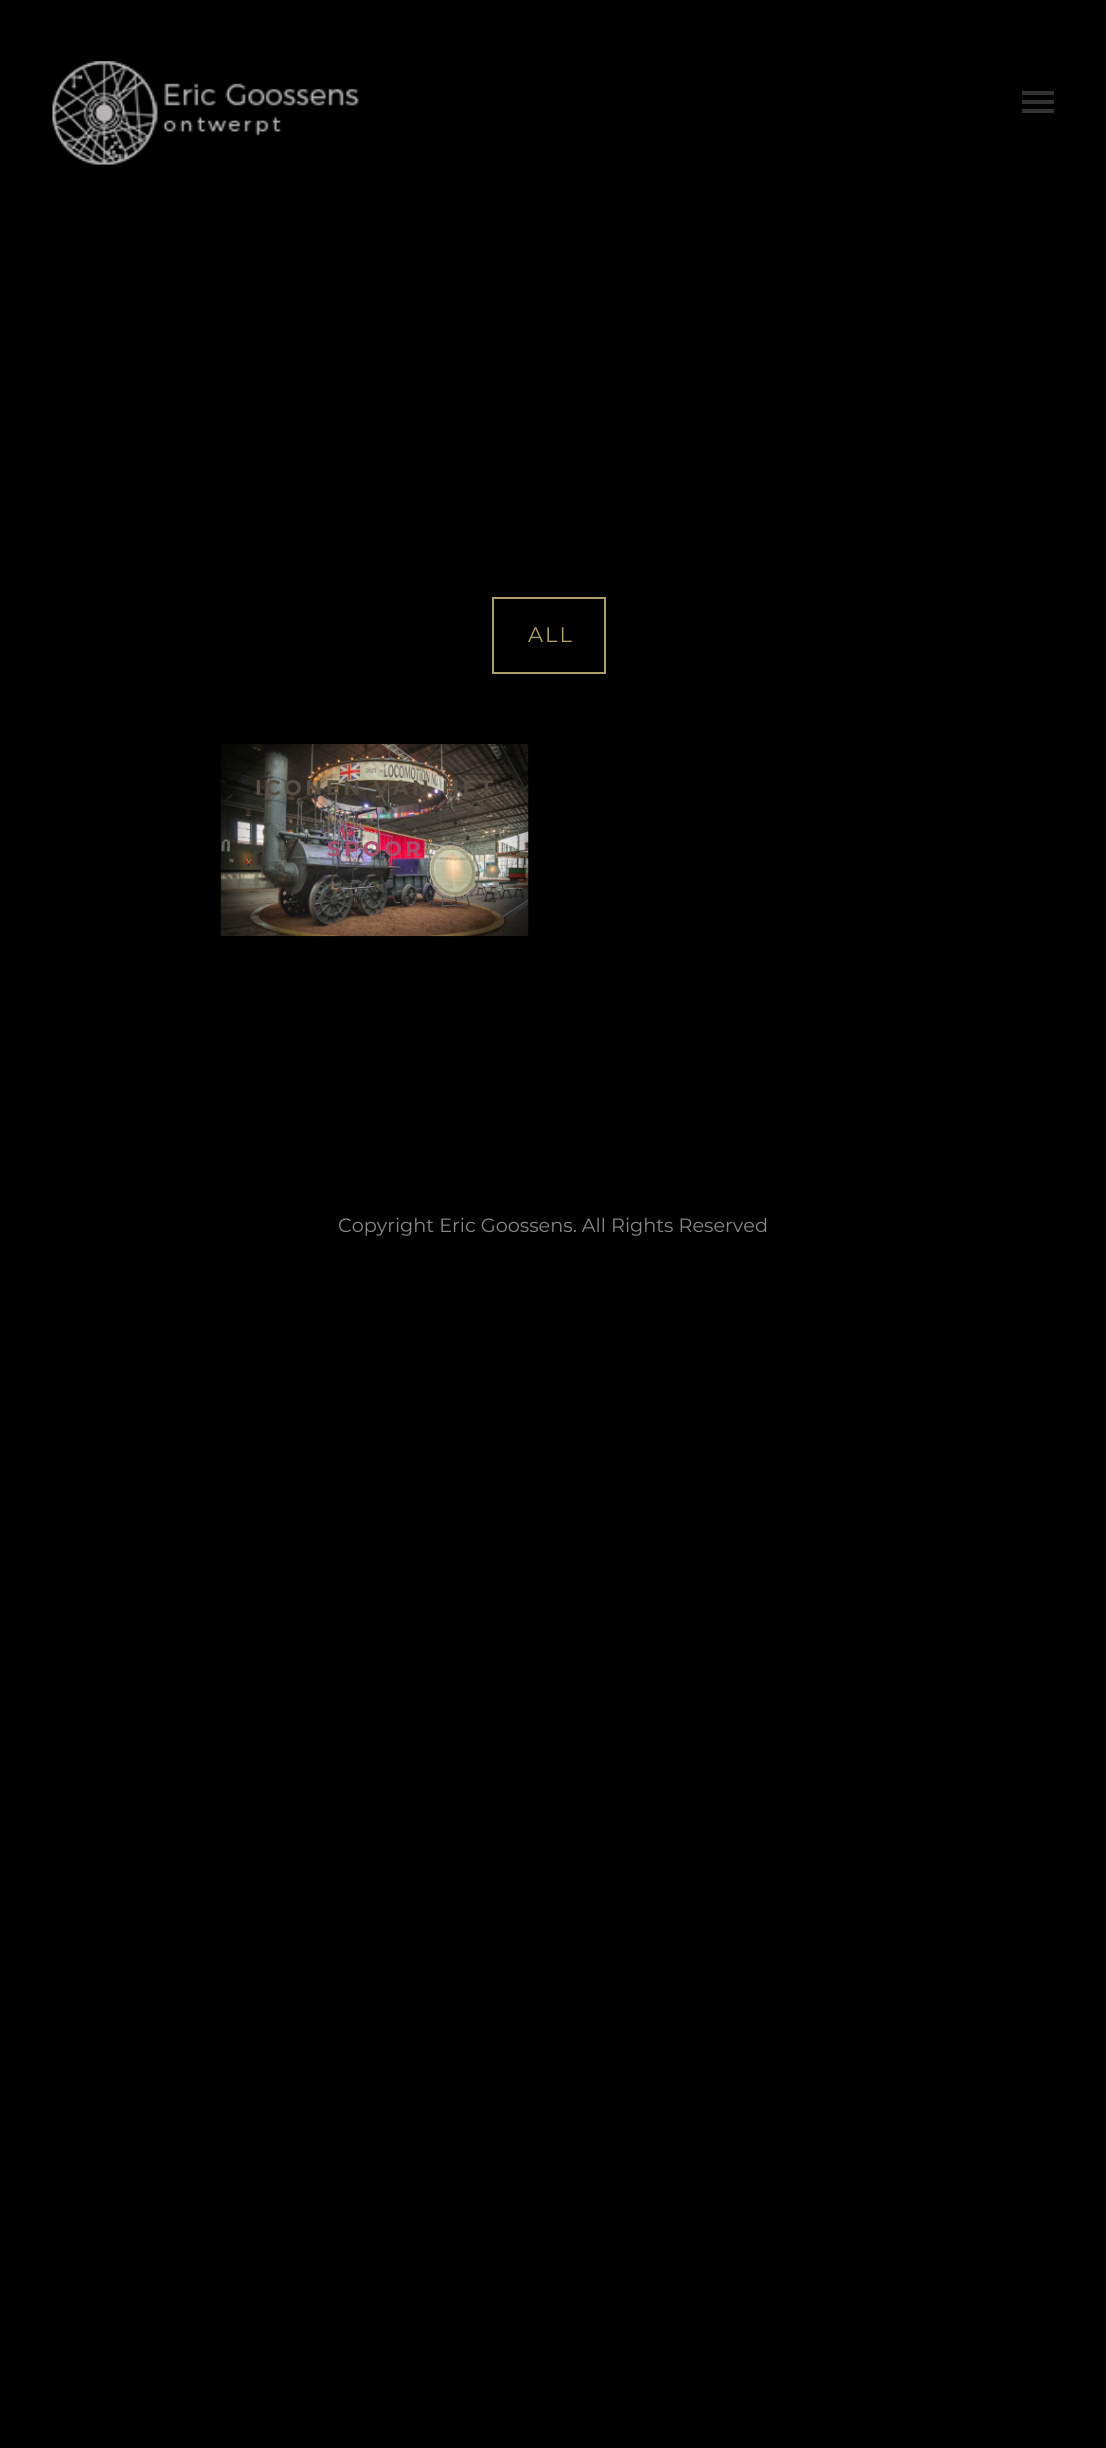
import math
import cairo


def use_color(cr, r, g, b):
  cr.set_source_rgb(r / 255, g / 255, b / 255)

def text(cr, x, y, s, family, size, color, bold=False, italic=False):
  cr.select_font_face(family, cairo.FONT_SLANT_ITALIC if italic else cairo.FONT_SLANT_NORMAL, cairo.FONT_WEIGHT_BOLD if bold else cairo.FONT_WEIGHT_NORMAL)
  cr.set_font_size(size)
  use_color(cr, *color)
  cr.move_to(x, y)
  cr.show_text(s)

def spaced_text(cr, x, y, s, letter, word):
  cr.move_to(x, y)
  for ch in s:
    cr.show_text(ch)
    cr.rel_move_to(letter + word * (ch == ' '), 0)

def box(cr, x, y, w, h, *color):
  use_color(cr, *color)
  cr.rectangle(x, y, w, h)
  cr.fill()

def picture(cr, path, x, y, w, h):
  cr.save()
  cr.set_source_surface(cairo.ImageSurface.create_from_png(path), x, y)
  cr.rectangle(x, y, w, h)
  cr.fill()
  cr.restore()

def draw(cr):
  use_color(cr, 0, 0, 0)
  cr.paint()
  picture(cr, "img_01.png", 52, 61, 307, 104)
  box(cr, 1022, 91, 32, 4, 50, 50, 50)
  box(cr, 1022, 100, 32, 4, 50, 50, 50)
  box(cr, 1022, 109, 32, 4, 50, 50, 50)
  cr.rectangle(493, 598, 112, 75)
  use_color(cr, 174, 159, 106)
  cr.stroke()
  picture(cr, "img_02.png", 220, 743, 309, 194)
  cr.select_font_face("Montserrat")
  cr.set_font_size(21)
  spaced_text(cr, 528, 642, "ALL", 2, 0)
  cr.select_font_face("Montserrat", cairo.FONT_SLANT_NORMAL, cairo.FONT_WEIGHT_BOLD)
  use_color(cr, 87, 78, 67)
  spaced_text(cr, 255, 795, "ICONEN VAN HET", 3.5, 0)
  use_color(cr, 169, 80, 111)
  spaced_text(cr, 327, 856, "SPOOR", 3.5, 0)
  text(cr, 338, 1232, "Copyright Eric Goossens. All Rights Reserved", "Montserrat", 19.25, (136, 136, 136))


surface = cairo.ImageSurface(cairo.FORMAT_RGB24, 1106, 2448)
cr = cairo.Context(surface)
options = cairo.FontOptions()
options.set_hint_metrics(cairo.HINT_METRICS_OFF)
options.set_hint_style(cairo.HINT_STYLE_NONE)
cr.set_font_options(options)
cr.set_miter_limit(4)
draw(cr)
surface.write_to_png("out.png")
